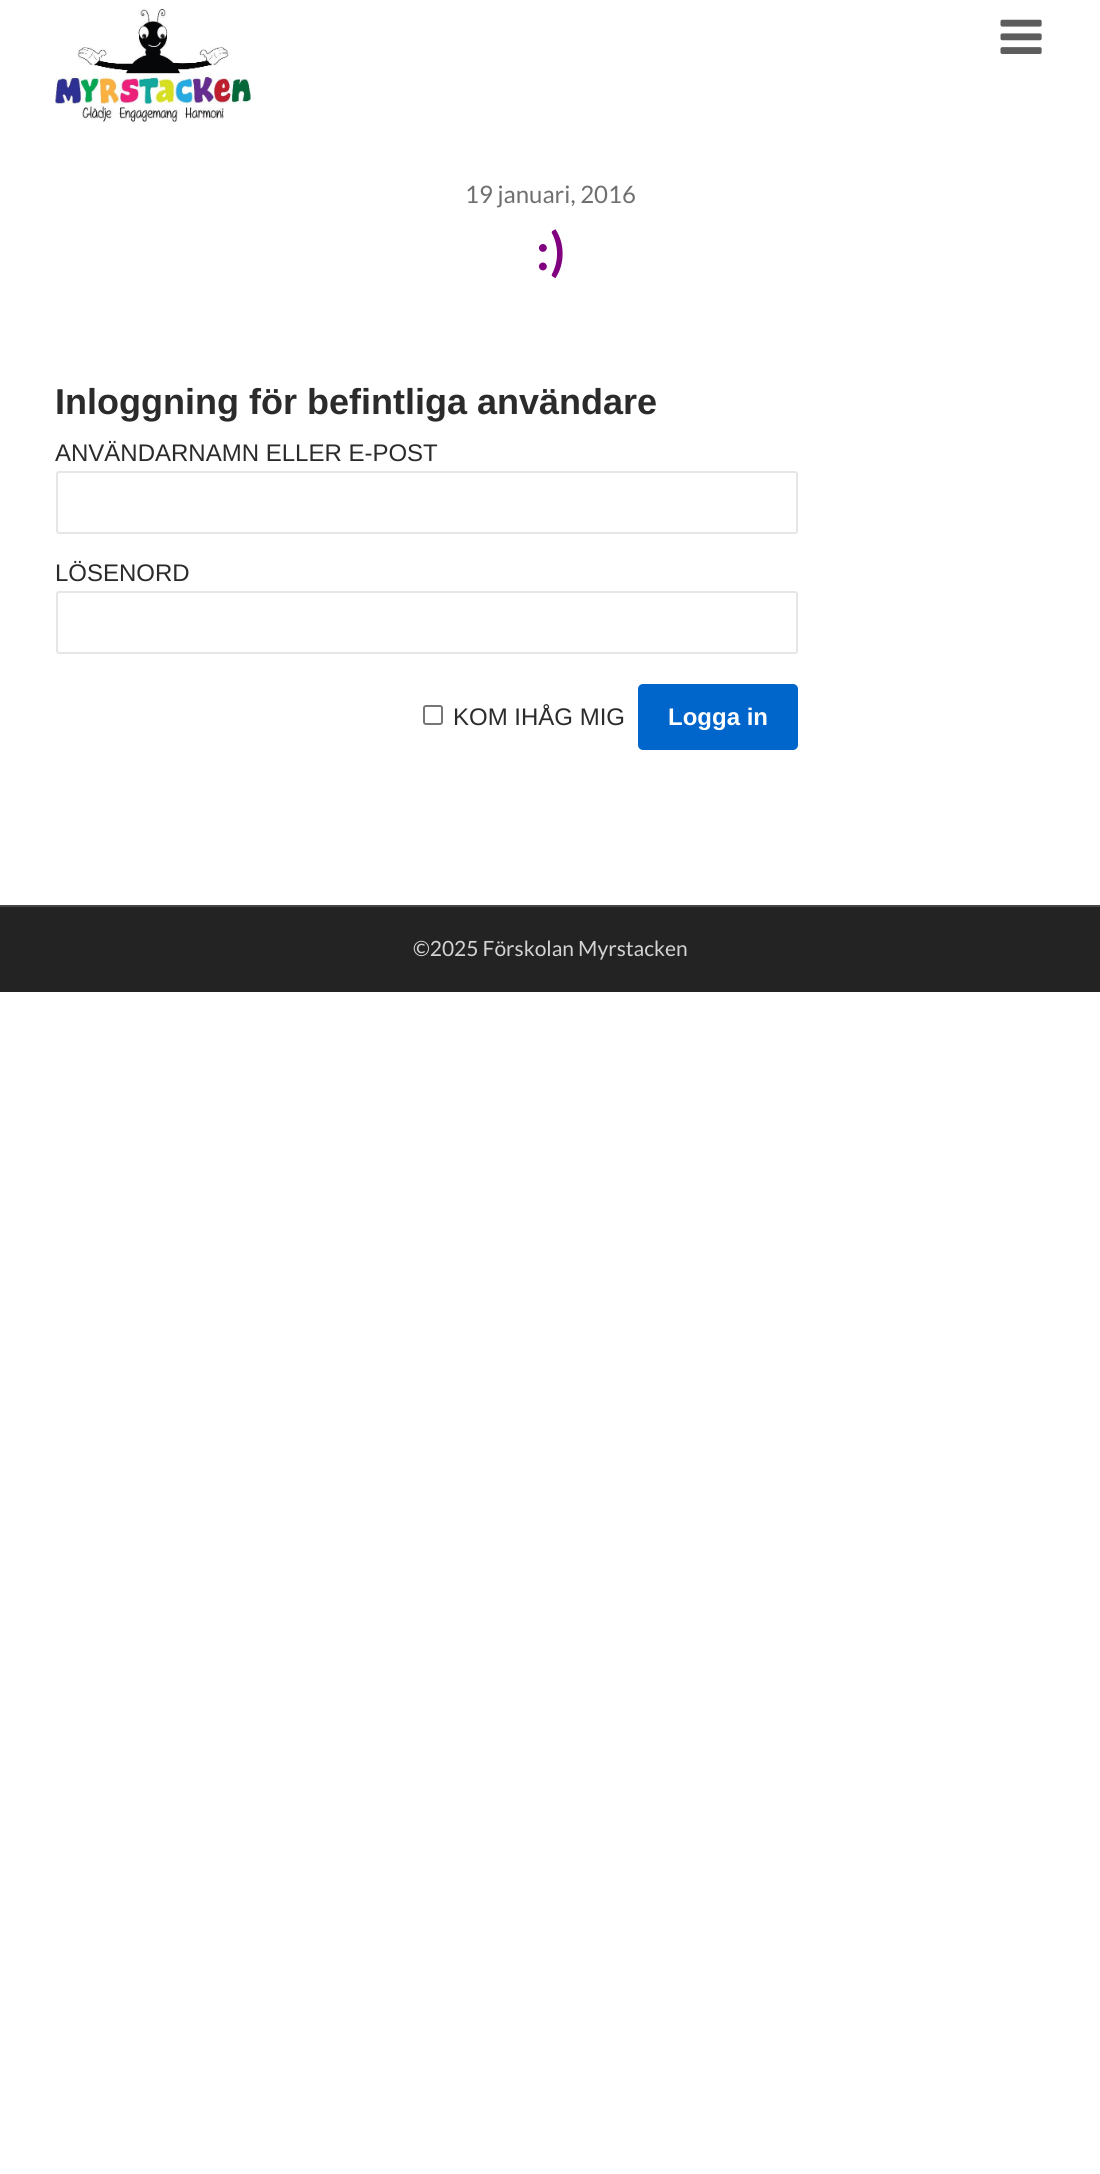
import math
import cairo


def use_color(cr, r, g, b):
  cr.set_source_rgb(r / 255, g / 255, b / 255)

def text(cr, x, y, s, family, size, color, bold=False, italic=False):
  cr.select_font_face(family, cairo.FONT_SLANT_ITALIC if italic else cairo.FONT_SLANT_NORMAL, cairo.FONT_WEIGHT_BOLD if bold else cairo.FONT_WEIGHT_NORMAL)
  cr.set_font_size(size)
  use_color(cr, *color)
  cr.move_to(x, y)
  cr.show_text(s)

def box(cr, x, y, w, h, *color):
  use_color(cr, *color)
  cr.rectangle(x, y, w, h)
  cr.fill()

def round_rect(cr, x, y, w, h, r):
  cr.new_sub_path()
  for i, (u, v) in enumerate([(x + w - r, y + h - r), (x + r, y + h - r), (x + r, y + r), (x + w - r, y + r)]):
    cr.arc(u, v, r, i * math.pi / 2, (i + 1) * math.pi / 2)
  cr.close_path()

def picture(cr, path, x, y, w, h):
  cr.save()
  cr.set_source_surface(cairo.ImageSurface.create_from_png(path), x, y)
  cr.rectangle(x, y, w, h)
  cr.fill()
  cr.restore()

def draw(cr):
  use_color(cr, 255, 255, 255)
  cr.paint()
  picture(cr, "img_01.png", 55, 9, 196, 113)
  picture(cr, "img_02.png", 1000, 19, 42, 35)
  round_rect(cr, 57, 472, 740, 61, 2)
  use_color(cr, 230, 230, 230)
  cr.stroke()
  round_rect(cr, 57, 592, 740, 61, 2)
  cr.stroke()
  round_rect(cr, 424, 706, 18, 18, 2)
  use_color(cr, 118, 118, 118)
  cr.stroke()
  use_color(cr, 0, 102, 204)
  round_rect(cr, 638, 684, 160, 66, 5)
  cr.fill()
  box(cr, 0, 907, 1100, 85, 35, 35, 35)
  box(cr, 0, 905, 1100, 2, 70, 70, 70)
  text(cr, 465, 203, "19 januari, 2016", "Lato", 24, (111, 111, 111))
  text(cr, 536, 270, ":)", "Lato", 52, (128, 0, 128), bold=True)
  text(cr, 55, 414, "Inloggning för befintliga användare", "Liberation Sans", 36, (43, 43, 43), bold=True)
  text(cr, 55, 461, "ANVÄNDARNAMN ELLER E-POST", "Liberation Sans", 24, (43, 43, 43))
  text(cr, 55, 581, "LÖSENORD", "Liberation Sans", 24, (43, 43, 43))
  text(cr, 453, 725, "KOM IHÅG MIG", "Liberation Sans", 24, (43, 43, 43))
  text(cr, 668, 725, "Logga in", "Liberation Sans", 24, (255, 255, 255), bold=True)
  text(cr, 413, 956, "©2025 Förskolan Myrstacken", "Lato", 21, (211, 211, 211))


surface = cairo.ImageSurface(cairo.FORMAT_RGB24, 1100, 2174)
cr = cairo.Context(surface)
options = cairo.FontOptions()
options.set_hint_metrics(cairo.HINT_METRICS_OFF)
options.set_hint_style(cairo.HINT_STYLE_NONE)
cr.set_font_options(options)
cr.set_miter_limit(4)
draw(cr)
surface.write_to_png("out.png")
